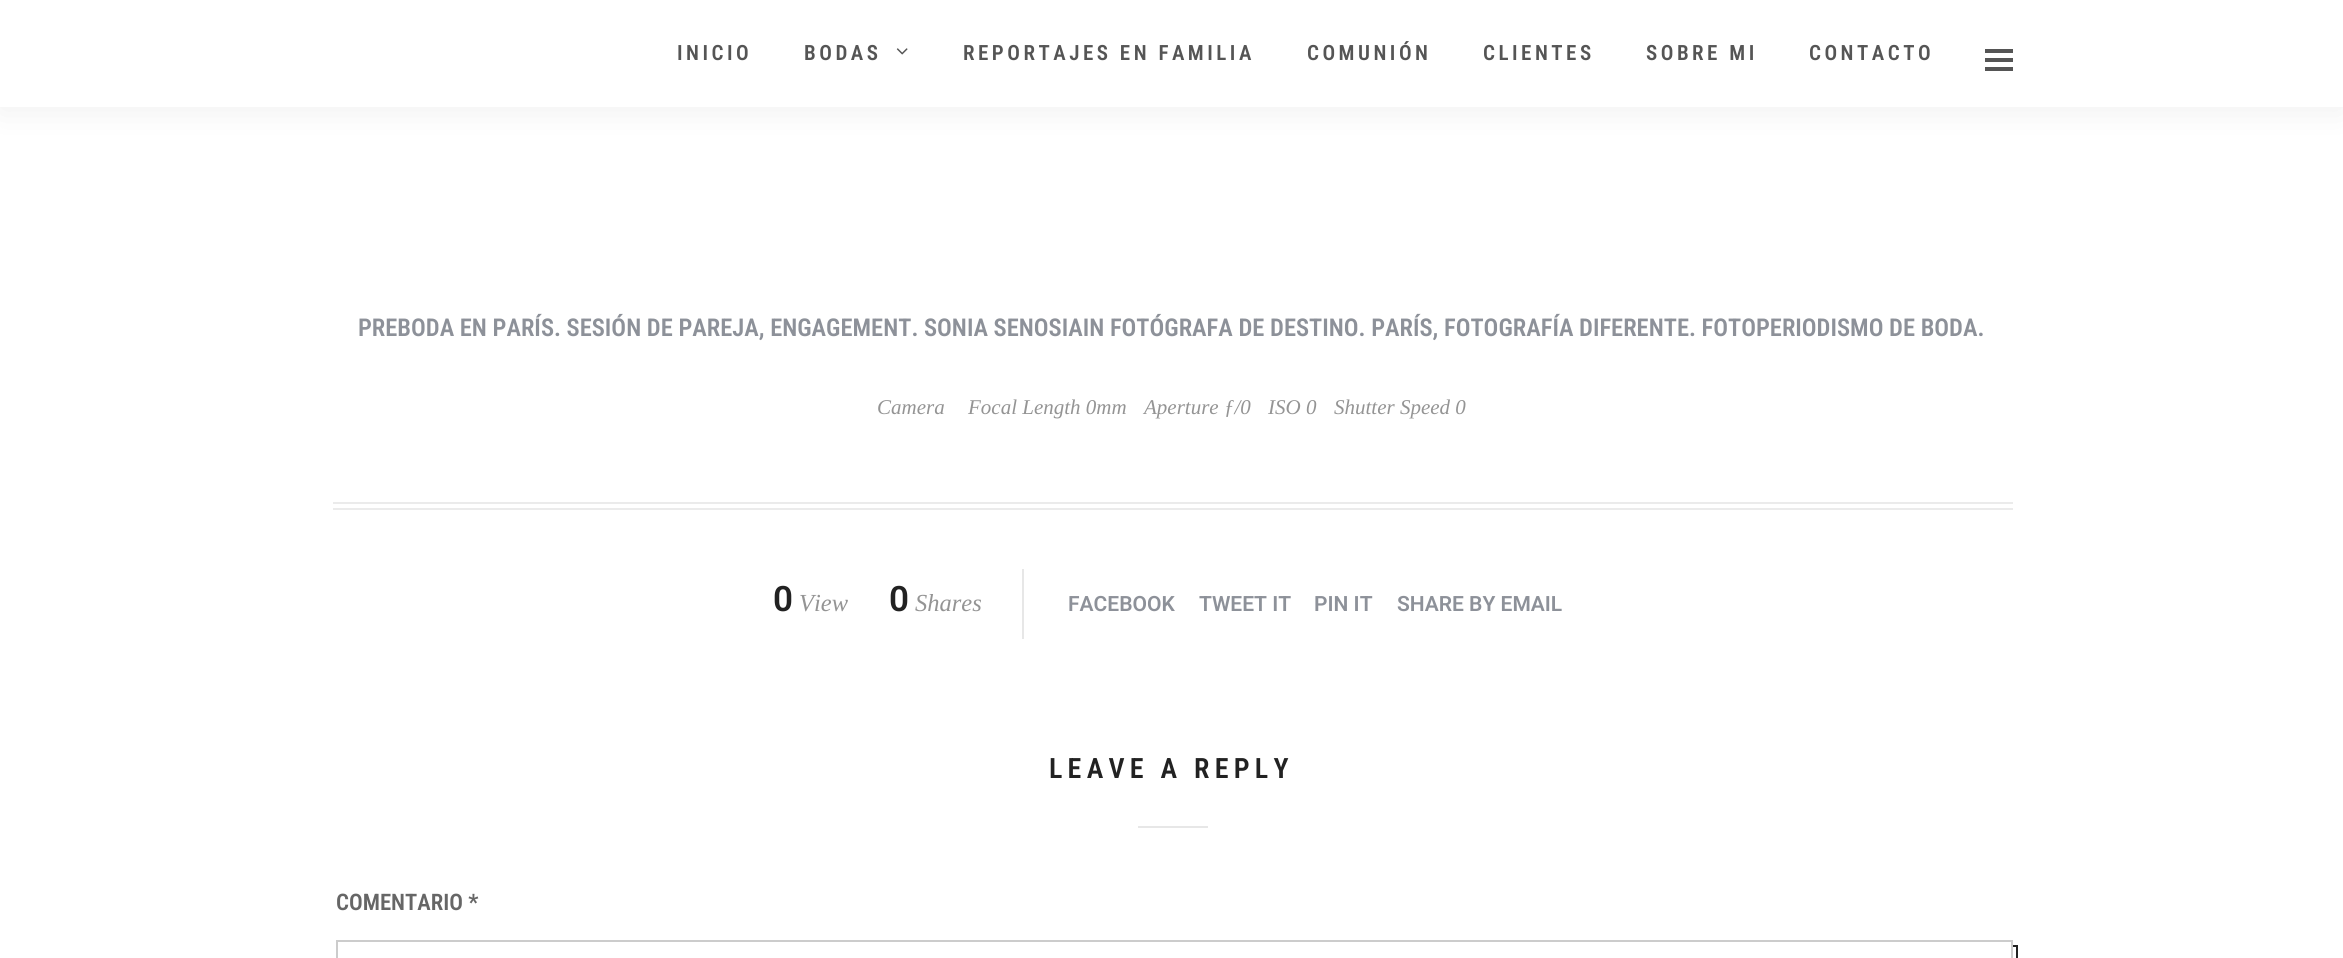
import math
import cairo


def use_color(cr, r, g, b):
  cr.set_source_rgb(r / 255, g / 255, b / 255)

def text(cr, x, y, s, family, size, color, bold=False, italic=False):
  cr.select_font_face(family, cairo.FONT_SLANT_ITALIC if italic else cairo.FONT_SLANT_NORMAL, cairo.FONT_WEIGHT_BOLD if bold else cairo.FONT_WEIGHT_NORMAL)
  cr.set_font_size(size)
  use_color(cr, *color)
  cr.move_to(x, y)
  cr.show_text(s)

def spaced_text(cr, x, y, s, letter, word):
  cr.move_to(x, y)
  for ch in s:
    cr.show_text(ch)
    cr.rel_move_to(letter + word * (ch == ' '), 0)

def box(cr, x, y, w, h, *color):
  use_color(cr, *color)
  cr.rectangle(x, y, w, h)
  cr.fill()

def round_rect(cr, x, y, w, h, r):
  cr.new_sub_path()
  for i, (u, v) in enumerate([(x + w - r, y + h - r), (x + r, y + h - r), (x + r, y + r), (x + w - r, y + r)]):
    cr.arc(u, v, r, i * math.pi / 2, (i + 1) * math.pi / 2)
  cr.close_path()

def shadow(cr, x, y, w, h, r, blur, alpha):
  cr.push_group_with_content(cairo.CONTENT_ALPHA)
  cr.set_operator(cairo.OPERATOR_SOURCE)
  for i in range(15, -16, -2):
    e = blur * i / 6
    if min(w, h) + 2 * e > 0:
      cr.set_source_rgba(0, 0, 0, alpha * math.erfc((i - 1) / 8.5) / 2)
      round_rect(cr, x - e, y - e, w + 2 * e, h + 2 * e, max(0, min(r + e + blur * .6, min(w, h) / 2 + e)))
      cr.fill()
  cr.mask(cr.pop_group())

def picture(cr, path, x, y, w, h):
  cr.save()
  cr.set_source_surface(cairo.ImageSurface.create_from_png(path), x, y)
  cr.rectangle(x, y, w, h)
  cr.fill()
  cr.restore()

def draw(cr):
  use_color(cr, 255, 255, 255)
  cr.paint()
  use_color(cr, 0, 0, 0)
  shadow(cr, 0, 2, 2343, 107, 0, 17.5, 0.07)
  box(cr, 0, 0, 2343, 107, 255, 255, 255)
  picture(cr, "img_01.png", 896, 48, 12, 7)
  box(cr, 1985, 49, 28, 4, 85, 85, 85)
  box(cr, 1985, 58, 28, 4, 85, 85, 85)
  box(cr, 1985, 67, 28, 4, 85, 85, 85)
  box(cr, 333, 502, 1680, 2, 235, 235, 235)
  box(cr, 333, 508, 1680, 2, 235, 235, 235)
  box(cr, 1022, 569, 2, 70, 231, 231, 231)
  box(cr, 1138, 826, 70, 2, 231, 231, 231)
  use_color(cr, 34, 34, 34)
  cr.new_path()
  cr.move_to(341, 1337)
  cr.line_to(341, 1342)
  cr.line_to(2018, 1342)
  cr.line_to(2018, 945)
  cr.line_to(2012, 945)
  cr.line_to(2012, 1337)
  cr.close_path()
  cr.fill()
  use_color(cr, 255, 255, 255)
  cr.new_path()
  cr.move_to(343, 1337)
  cr.line_to(343, 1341)
  cr.line_to(2016, 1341)
  cr.line_to(2016, 947)
  cr.line_to(2012, 947)
  cr.line_to(2012, 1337)
  cr.close_path()
  cr.fill()
  cr.rectangle(337, 941, 1675, 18)
  use_color(cr, 204, 204, 204)
  cr.stroke()
  cr.select_font_face("Roboto Condensed SemiBold")
  cr.set_font_size(21)
  use_color(cr, 85, 85, 85)
  spaced_text(cr, 677, 60, "INICIO", 3.5, 0)
  spaced_text(cr, 804, 60, "BODAS", 3.5, 0)
  spaced_text(cr, 963, 60, "REPORTAJES EN FAMILIA", 3.5, 0)
  spaced_text(cr, 1307, 60, "COMUNIÓN", 3.5, 0)
  spaced_text(cr, 1483, 60, "CLIENTES", 3.5, 0)
  spaced_text(cr, 1646, 60, "SOBRE MI", 3.5, 0)
  spaced_text(cr, 1809, 60, "CONTACTO", 3.5, 0)
  text(cr, 358, 336, "PREBODA EN PARÍS. SESIÓN DE PAREJA, ENGAGEMENT. SONIA SENOSIAIN FOTÓGRAFA DE DESTINO. PARÍS, FOTOGRAFÍA DIFERENTE. FOTOPERIODISMO DE BODA.", "Roboto Condensed SemiBold", 24.5, (141, 145, 153))
  text(cr, 877, 414, "Camera", "Liberation Serif", 21, (148, 148, 148), italic=True)
  text(cr, 968, 414, "Focal Length 0mm", "Liberation Serif", 21, (148, 148, 148), italic=True)
  text(cr, 1144, 414, "Aperture ƒ/0", "Liberation Serif", 21, (148, 148, 148), italic=True)
  text(cr, 1268, 414, "ISO 0", "Liberation Serif", 21, (148, 148, 148), italic=True)
  text(cr, 1334, 414, "Shutter Speed 0", "Liberation Serif", 21, (148, 148, 148), italic=True)
  text(cr, 773, 611, "0", "Roboto SemiBold", 35, (34, 34, 34))
  text(cr, 799, 611, "View", "Liberation Serif", 24.5, (148, 148, 148), italic=True)
  text(cr, 889, 611, "0", "Roboto SemiBold", 35, (34, 34, 34))
  text(cr, 915, 611, "Shares", "Liberation Serif", 24.5, (148, 148, 148), italic=True)
  text(cr, 1068, 611, "FACEBOOK", "Roboto SemiBold", 21, (141, 145, 153))
  text(cr, 1199, 611, "TWEET IT", "Roboto SemiBold", 21, (141, 145, 153))
  text(cr, 1314, 611, "PIN IT", "Roboto SemiBold", 21, (141, 145, 153))
  text(cr, 1397, 611, "SHARE BY EMAIL", "Roboto SemiBold", 21, (141, 145, 153))
  cr.select_font_face("Roboto Condensed SemiBold")
  cr.set_font_size(28)
  use_color(cr, 34, 34, 34)
  spaced_text(cr, 1049, 778, "LEAVE A REPLY", 5.25, 0)
  text(cr, 336, 910, "COMENTARIO *", "Roboto Condensed SemiBold", 22.75, (102, 102, 102))


surface = cairo.ImageSurface(cairo.FORMAT_RGB24, 2343, 958)
cr = cairo.Context(surface)
options = cairo.FontOptions()
options.set_hint_metrics(cairo.HINT_METRICS_OFF)
options.set_hint_style(cairo.HINT_STYLE_NONE)
cr.set_font_options(options)
cr.set_miter_limit(4)
draw(cr)
surface.write_to_png("out.png")
